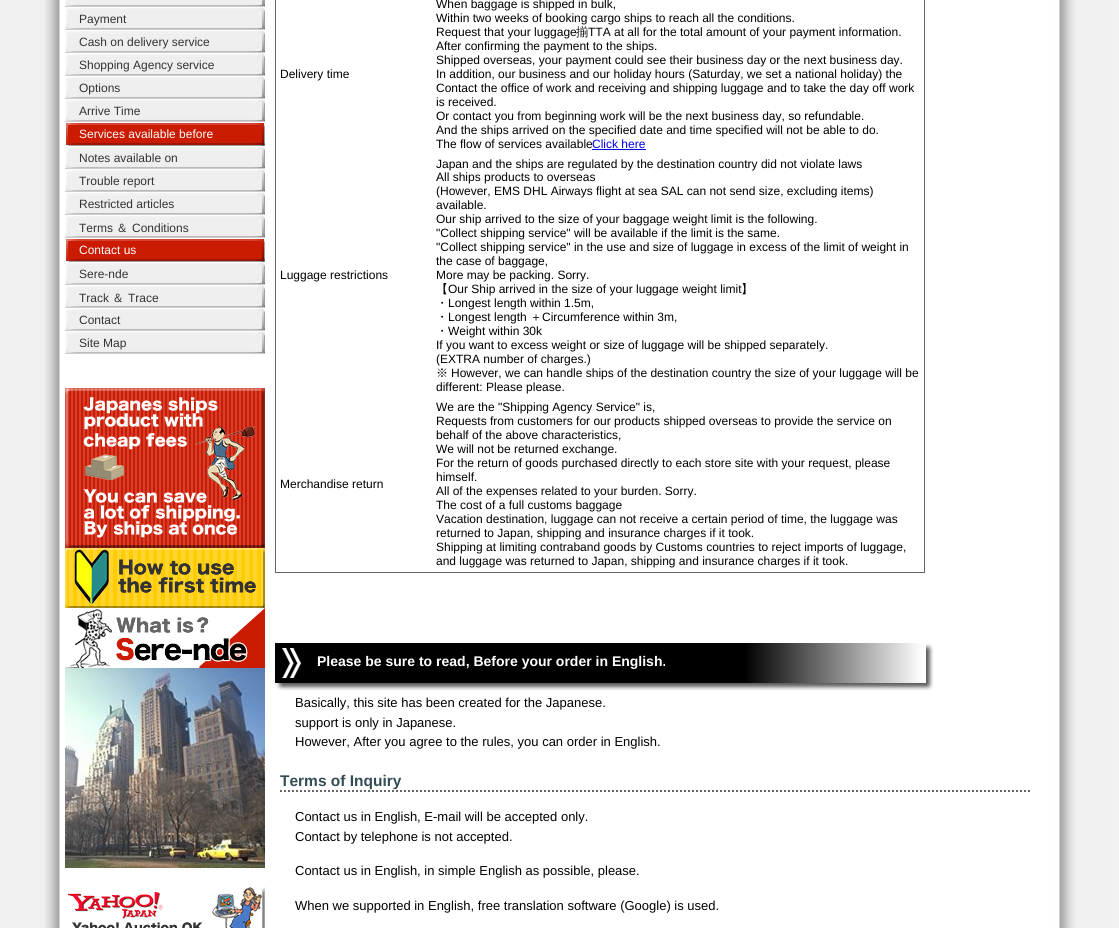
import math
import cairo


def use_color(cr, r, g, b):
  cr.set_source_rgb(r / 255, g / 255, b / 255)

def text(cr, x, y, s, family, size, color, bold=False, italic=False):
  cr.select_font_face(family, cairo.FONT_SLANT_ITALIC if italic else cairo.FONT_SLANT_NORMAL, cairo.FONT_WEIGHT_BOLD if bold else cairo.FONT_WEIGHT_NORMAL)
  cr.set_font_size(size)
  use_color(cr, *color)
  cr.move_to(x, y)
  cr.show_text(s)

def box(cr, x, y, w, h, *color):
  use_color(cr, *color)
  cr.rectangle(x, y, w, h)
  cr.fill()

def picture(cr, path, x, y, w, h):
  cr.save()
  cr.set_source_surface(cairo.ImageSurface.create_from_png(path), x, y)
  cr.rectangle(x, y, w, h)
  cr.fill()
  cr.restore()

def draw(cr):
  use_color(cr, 255, 255, 255)
  cr.paint()
  picture(cr, "img_01.png", 0, 0, 1119, 928)
  picture(cr, "img_02.png", 65, 0, 200, 6)
  box(cr, 65, 6, 200, 1, 204, 204, 204)
  picture(cr, "img_03.png", 65, 7, 200, 22)
  box(cr, 65, 29, 200, 1, 204, 204, 204)
  picture(cr, "img_03.png", 65, 30, 200, 22)
  box(cr, 65, 52, 200, 1, 204, 204, 204)
  picture(cr, "img_03.png", 65, 53, 200, 22)
  box(cr, 65, 75, 200, 1, 204, 204, 204)
  picture(cr, "img_03.png", 65, 76, 200, 22)
  box(cr, 65, 98, 200, 1, 204, 204, 204)
  picture(cr, "img_03.png", 65, 99, 200, 22)
  box(cr, 65, 121, 200, 1, 204, 204, 204)
  picture(cr, "img_04.png", 65, 122, 200, 24)
  picture(cr, "img_03.png", 65, 146, 200, 22)
  box(cr, 65, 168, 200, 1, 204, 204, 204)
  picture(cr, "img_03.png", 65, 169, 200, 22)
  box(cr, 65, 191, 200, 1, 204, 204, 204)
  picture(cr, "img_03.png", 65, 192, 200, 22)
  box(cr, 65, 214, 200, 1, 204, 204, 204)
  picture(cr, "img_03.png", 65, 215, 200, 22)
  box(cr, 65, 237, 200, 1, 204, 204, 204)
  picture(cr, "img_04.png", 65, 238, 200, 24)
  picture(cr, "img_03.png", 65, 262, 200, 22)
  box(cr, 65, 284, 200, 1, 204, 204, 204)
  picture(cr, "img_03.png", 65, 285, 200, 22)
  box(cr, 65, 307, 200, 1, 204, 204, 204)
  picture(cr, "img_03.png", 65, 308, 200, 22)
  box(cr, 65, 330, 200, 1, 204, 204, 204)
  picture(cr, "img_03.png", 65, 331, 200, 22)
  box(cr, 65, 353, 200, 1, 204, 204, 204)
  picture(cr, "img_05.png", 65, 388, 200, 160)
  picture(cr, "img_06.png", 65, 548, 200, 60)
  picture(cr, "img_07.png", 65, 608, 200, 60)
  picture(cr, "img_08.png", 65, 668, 200, 200)
  picture(cr, "img_09.png", 68, 887, 197, 41)
  cr.rectangle(275.5, -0.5, 649, 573)
  use_color(cr, 102, 102, 102)
  cr.set_line_width(1)
  cr.stroke()
  box(cr, 592, 149, 54, 1, 0, 0, 238)
  picture(cr, "img_10.png", 275, 643, 659, 48)
  cr.new_path()
  cr.move_to(280, 791)
  cr.line_to(1030, 791)
  use_color(cr, 102, 102, 102)
  cr.set_line_width(2)
  cr.set_dash([2, 2])
  cr.stroke()
  text(cr, 79, 23, "Payment", "Liberation Sans", 12, (51, 51, 51))
  text(cr, 79, 46, "Cash on delivery service", "Liberation Sans", 12, (51, 51, 51))
  text(cr, 79, 69, "Shopping Agency service", "Liberation Sans", 12, (51, 51, 51))
  text(cr, 79, 92, "Options", "Liberation Sans", 12, (51, 51, 51))
  text(cr, 79, 115, "Arrive Time", "Liberation Sans", 12, (51, 51, 51))
  text(cr, 79, 138, "Services available before", "Liberation Sans", 12, (255, 255, 255))
  text(cr, 79, 162, "Notes available on", "Liberation Sans", 12, (51, 51, 51))
  text(cr, 79, 185, "Trouble report", "Liberation Sans", 12, (51, 51, 51))
  text(cr, 79, 208, "Restricted articles", "Liberation Sans", 12, (51, 51, 51))
  text(cr, 79, 232, "Terms", "Liberation Sans", 12, (51, 51, 51))
  text(cr, 116, 232, "＆", "WenQuanYi Zen Hei Medium", 12, (51, 51, 51))
  text(cr, 132, 232, "Conditions", "Liberation Sans", 12, (51, 51, 51))
  text(cr, 79, 254, "Contact us", "Liberation Sans", 12, (255, 255, 255))
  text(cr, 79, 278, "Sere-nde", "Liberation Sans", 12, (51, 51, 51))
  text(cr, 79, 302, "Track", "Liberation Sans", 12, (51, 51, 51))
  text(cr, 112, 302, "＆", "WenQuanYi Zen Hei Medium", 12, (51, 51, 51))
  text(cr, 128, 302, "Trace", "Liberation Sans", 12, (51, 51, 51))
  text(cr, 79, 324, "Contact", "Liberation Sans", 12, (51, 51, 51))
  text(cr, 79, 347, "Site Map", "Liberation Sans", 12, (51, 51, 51))
  text(cr, 280, 78, "Delivery time", "Liberation Sans", 12, (0, 0, 0))
  text(cr, 436, 8, "When baggage is shipped in bulk,", "Liberation Sans", 12, (0, 0, 0))
  text(cr, 436, 22, "Within two weeks of booking cargo ships to reach all the conditions.", "Liberation Sans", 12, (0, 0, 0))
  text(cr, 436, 36, "Request that your luggage", "Liberation Sans", 12, (0, 0, 0))
  text(cr, 576, 36, "揃", "WenQuanYi Zen Hei Medium", 12, (0, 0, 0))
  text(cr, 588, 36, "TTA at all for the total amount of your payment information.", "Liberation Sans", 12, (0, 0, 0))
  text(cr, 436, 50, "After confirming the payment to the ships.", "Liberation Sans", 12, (0, 0, 0))
  text(cr, 436, 64, "Shipped overseas, your payment could see their business day or the next business day.", "Liberation Sans", 12, (0, 0, 0))
  text(cr, 436, 78, "In addition, our business and our holiday hours (Saturday, we set a national holiday) the", "Liberation Sans", 12, (0, 0, 0))
  text(cr, 436, 92, "Contact the office of work and receiving and shipping luggage and to take the day off work", "Liberation Sans", 12, (0, 0, 0))
  text(cr, 436, 106, "is received.", "Liberation Sans", 12, (0, 0, 0))
  text(cr, 436, 120, "Or contact you from beginning work will be the next business day, so refundable.", "Liberation Sans", 12, (0, 0, 0))
  text(cr, 436, 134, "And the ships arrived on the specified date and time specified will not be able to do.", "Liberation Sans", 12, (0, 0, 0))
  text(cr, 436, 148, "The flow of services available", "Liberation Sans", 12, (0, 0, 0))
  text(cr, 592, 148, "Click here", "Liberation Sans", 12, (0, 0, 238))
  text(cr, 280, 279, "Luggage restrictions", "Liberation Sans", 12, (0, 0, 0))
  text(cr, 436, 168, "Japan and the ships are regulated by the destination country did not violate laws", "Liberation Sans", 12, (0, 0, 0))
  text(cr, 436, 181, "All ships products to overseas", "Liberation Sans", 12, (0, 0, 0))
  text(cr, 436, 195, "(However, EMS DHL Airways flight at sea SAL can not send size, excluding items)", "Liberation Sans", 12, (0, 0, 0))
  text(cr, 436, 209, "available.", "Liberation Sans", 12, (0, 0, 0))
  text(cr, 436, 223, "Our ship arrived to the size of your baggage weight limit is the following.", "Liberation Sans", 12, (0, 0, 0))
  text(cr, 436, 237, "\"Collect shipping service\" will be available if the limit is the same.", "Liberation Sans", 12, (0, 0, 0))
  text(cr, 436, 251, "\"Collect shipping service\" in the use and size of luggage in excess of the limit of weight in", "Liberation Sans", 12, (0, 0, 0))
  text(cr, 436, 265, "the case of baggage,", "Liberation Sans", 12, (0, 0, 0))
  text(cr, 436, 279, "More may be packing. Sorry.", "Liberation Sans", 12, (0, 0, 0))
  text(cr, 436, 293, "【", "WenQuanYi Zen Hei Medium", 12, (0, 0, 0))
  text(cr, 448, 293, "Our Ship arrived in the size of your luggage weight limit", "Liberation Sans", 12, (0, 0, 0))
  text(cr, 741, 293, "】", "WenQuanYi Zen Hei Medium", 12, (0, 0, 0))
  text(cr, 436, 307, "・", "WenQuanYi Zen Hei Medium", 12, (0, 0, 0))
  text(cr, 448, 307, "Longest length within 1.5m,", "Liberation Sans", 12, (0, 0, 0))
  text(cr, 436, 321, "・", "WenQuanYi Zen Hei Medium", 12, (0, 0, 0))
  text(cr, 448, 321, "Longest length", "Liberation Sans", 12, (0, 0, 0))
  text(cr, 530, 321, "＋", "WenQuanYi Zen Hei Medium", 12, (0, 0, 0))
  text(cr, 542, 321, "Circumference within 3m,", "Liberation Sans", 12, (0, 0, 0))
  text(cr, 436, 335, "・", "WenQuanYi Zen Hei Medium", 12, (0, 0, 0))
  text(cr, 448, 335, "Weight within 30k", "Liberation Sans", 12, (0, 0, 0))
  text(cr, 436, 349, "If you want to excess weight or size of luggage will be shipped separately.", "Liberation Sans", 12, (0, 0, 0))
  text(cr, 436, 363, "(EXTRA number of charges.)", "Liberation Sans", 12, (0, 0, 0))
  text(cr, 436, 377, "※", "WenQuanYi Zen Hei Medium", 12, (0, 0, 0))
  text(cr, 451, 377, "However, we can handle ships of the destination country the size of your luggage will be", "Liberation Sans", 12, (0, 0, 0))
  text(cr, 436, 391, "different: Please please.", "Liberation Sans", 12, (0, 0, 0))
  text(cr, 280, 488, "Merchandise return", "Liberation Sans", 12, (0, 0, 0))
  text(cr, 436, 411, "We are the \"Shipping Agency Service\" is,", "Liberation Sans", 12, (0, 0, 0))
  text(cr, 436, 425, "Requests from customers for our products shipped overseas to provide the service on", "Liberation Sans", 12, (0, 0, 0))
  text(cr, 436, 439, "behalf of the above characteristics,", "Liberation Sans", 12, (0, 0, 0))
  text(cr, 436, 453, "We will not be returned exchange.", "Liberation Sans", 12, (0, 0, 0))
  text(cr, 436, 467, "For the return of goods purchased directly to each store site with your request, please", "Liberation Sans", 12, (0, 0, 0))
  text(cr, 436, 481, "himself.", "Liberation Sans", 12, (0, 0, 0))
  text(cr, 436, 495, "All of the expenses related to your burden. Sorry.", "Liberation Sans", 12, (0, 0, 0))
  text(cr, 436, 509, "The cost of a full customs baggage", "Liberation Sans", 12, (0, 0, 0))
  text(cr, 436, 523, "Vacation destination, luggage can not receive a certain period of time, the luggage was", "Liberation Sans", 12, (0, 0, 0))
  text(cr, 436, 537, "returned to Japan, shipping and insurance charges if it took.", "Liberation Sans", 12, (0, 0, 0))
  text(cr, 436, 551, "Shipping at limiting contraband goods by Customs countries to reject imports of luggage,", "Liberation Sans", 12, (0, 0, 0))
  text(cr, 436, 565, "and luggage was returned to Japan, shipping and insurance charges if it took.", "Liberation Sans", 12, (0, 0, 0))
  text(cr, 317, 666, "Please be sure to read, Before your order in English.", "Liberation Sans", 14, (255, 255, 255), bold=True)
  text(cr, 295, 707, "Basically, this site has been created for the Japanese.", "Liberation Sans", 13, (0, 0, 0))
  text(cr, 295, 727, "support is only in Japanese.", "Liberation Sans", 13, (0, 0, 0))
  text(cr, 295, 746, "However, After you agree to the rules, you can order in English.", "Liberation Sans", 13, (0, 0, 0))
  text(cr, 280, 786, "Terms of Inquiry", "Liberation Sans", 15.5, (51, 77, 85), bold=True)
  text(cr, 295, 821, "Contact us in English, E-mail will be accepted only.", "Liberation Sans", 13, (0, 0, 0))
  text(cr, 295, 841, "Contact by telephone is not accepted.", "Liberation Sans", 13, (0, 0, 0))
  text(cr, 295, 875, "Contact us in English, in simple English as possible, please.", "Liberation Sans", 13, (0, 0, 0))
  text(cr, 295, 910, "When we supported in English, free translation software (Google) is used.", "Liberation Sans", 13, (0, 0, 0))


surface = cairo.ImageSurface(cairo.FORMAT_RGB24, 1119, 928)
cr = cairo.Context(surface)
options = cairo.FontOptions()
options.set_hint_metrics(cairo.HINT_METRICS_OFF)
options.set_hint_style(cairo.HINT_STYLE_NONE)
cr.set_font_options(options)
cr.set_miter_limit(4)
draw(cr)
surface.write_to_png("out.png")
